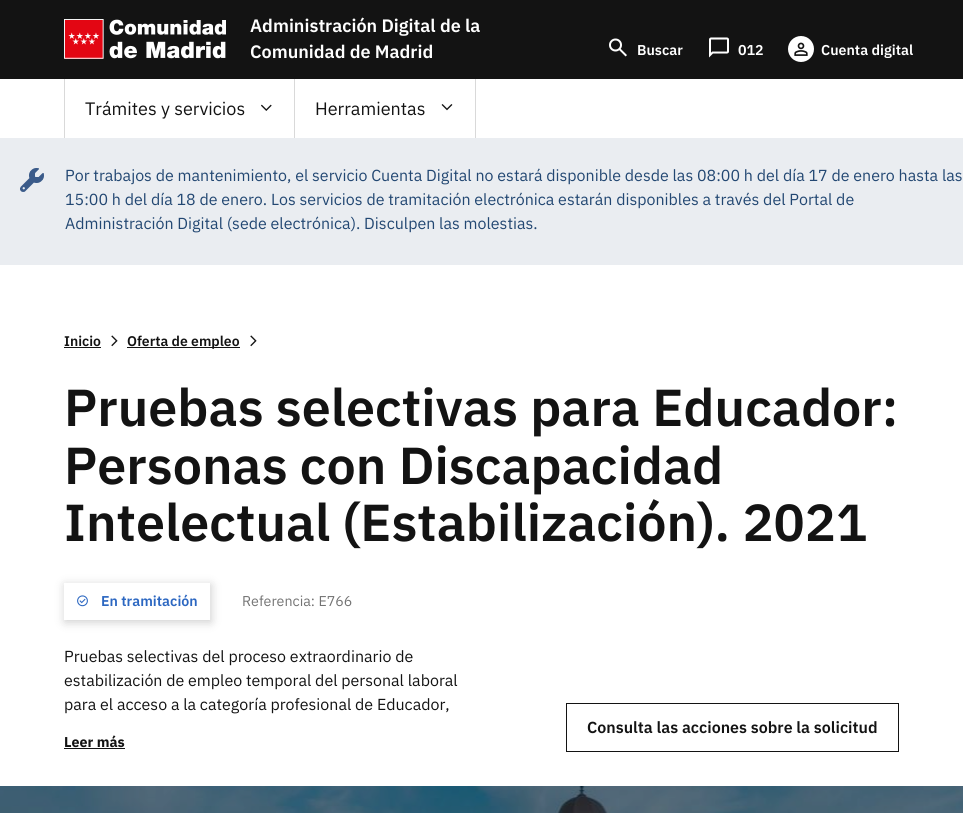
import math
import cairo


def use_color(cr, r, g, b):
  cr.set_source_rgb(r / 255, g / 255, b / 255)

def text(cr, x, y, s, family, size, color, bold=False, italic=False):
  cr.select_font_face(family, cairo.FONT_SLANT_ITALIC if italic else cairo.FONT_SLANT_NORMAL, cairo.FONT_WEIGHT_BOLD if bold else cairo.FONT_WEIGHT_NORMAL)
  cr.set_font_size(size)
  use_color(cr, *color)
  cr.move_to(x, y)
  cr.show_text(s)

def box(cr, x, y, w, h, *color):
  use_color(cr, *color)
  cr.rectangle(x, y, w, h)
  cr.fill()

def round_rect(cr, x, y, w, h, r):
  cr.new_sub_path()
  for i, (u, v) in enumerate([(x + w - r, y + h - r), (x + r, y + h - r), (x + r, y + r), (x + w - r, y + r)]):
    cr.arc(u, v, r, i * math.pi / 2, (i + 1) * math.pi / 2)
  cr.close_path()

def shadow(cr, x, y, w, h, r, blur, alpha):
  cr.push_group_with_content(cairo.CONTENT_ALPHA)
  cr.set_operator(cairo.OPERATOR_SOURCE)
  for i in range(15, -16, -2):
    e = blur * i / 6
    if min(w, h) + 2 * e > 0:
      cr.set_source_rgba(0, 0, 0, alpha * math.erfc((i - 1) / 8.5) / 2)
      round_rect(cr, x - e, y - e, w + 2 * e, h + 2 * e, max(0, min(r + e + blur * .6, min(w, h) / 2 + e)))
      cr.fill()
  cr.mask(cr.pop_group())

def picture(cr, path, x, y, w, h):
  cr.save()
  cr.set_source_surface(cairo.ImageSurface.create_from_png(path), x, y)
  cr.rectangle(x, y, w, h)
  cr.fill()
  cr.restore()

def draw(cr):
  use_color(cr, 255, 255, 255)
  cr.paint()
  box(cr, 0, 0, 963, 79, 19, 19, 19)
  picture(cr, "img_01.png", 64, 19, 162, 40)
  picture(cr, "img_02.png", 609, 38, 18, 19)
  picture(cr, "img_03.png", 709, 37, 20, 21)
  use_color(cr, 255, 255, 255)
  cr.arc(801, 49, 13, 0, 2 * math.pi)
  cr.fill()
  picture(cr, "img_04.png", 794, 42, 14, 14)
  box(cr, 64, 79, 1, 59, 217, 217, 217)
  picture(cr, "img_05.png", 261, 104, 11, 7)
  box(cr, 294, 79, 1, 59, 217, 217, 217)
  picture(cr, "img_06.png", 441, 104, 12, 7)
  box(cr, 475, 79, 1, 59, 217, 217, 217)
  box(cr, 0, 138, 963, 127, 234, 237, 241)
  picture(cr, "img_07.png", 20, 168, 24, 24)
  box(cr, 64, 347, 37, 1, 19, 19, 19)
  picture(cr, "img_08.png", 111, 335, 7, 12)
  box(cr, 127, 347, 113, 1, 19, 19, 19)
  picture(cr, "img_08.png", 250, 335, 7, 12)
  cr.save()
  cr.set_fill_rule(cairo.FILL_RULE_EVEN_ODD)
  cr.new_path()
  cr.move_to(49, 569)
  cr.line_to(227, 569)
  cr.line_to(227, 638)
  cr.line_to(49, 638)
  cr.close_path()
  cr.move_to(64, 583)
  cr.line_to(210, 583)
  cr.line_to(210, 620)
  cr.line_to(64, 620)
  cr.close_path()
  cr.clip()
  use_color(cr, 0, 0, 0)
  shadow(cr, 65, 585, 146, 37, 0, 5, 0.2)
  cr.restore()
  picture(cr, "img_09.png", 77, 595, 11, 12)
  box(cr, 64, 748, 61, 1, 19, 19, 19)
  cr.rectangle(566.5, 703.5, 332, 48)
  cr.set_line_width(1)
  cr.stroke()
  picture(cr, "img_10.png", 0, 786, 963, 27)
  text(cr, 250, 32, "Administración Digital de la", "IBM Plex Sans SemiBold", 18, (255, 255, 255))
  text(cr, 250, 58, "Comunidad de Madrid", "IBM Plex Sans SemiBold", 18, (255, 255, 255))
  text(cr, 637, 55, "Buscar", "IBM Plex Sans SemiBold", 14.25, (255, 255, 255))
  text(cr, 738, 55, "012", "IBM Plex Sans SemiBold", 14.25, (255, 255, 255))
  text(cr, 821, 55, "Cuenta digital", "IBM Plex Sans SemiBold", 14.25, (255, 255, 255))
  text(cr, 85, 115, "Trámites y servicios", "IBM Plex Sans", 18, (19, 19, 19))
  text(cr, 315, 115, "Herramientas", "IBM Plex Sans", 18, (19, 19, 19))
  text(cr, 65, 181, "Por trabajos de mantenimiento, el servicio Cuenta Digital no estará disponible desde las 08:00 h del día 17 de enero hasta las", "IBM Plex Sans", 16, (34, 71, 114))
  text(cr, 65, 205, "15:00 h del día 18 de enero. Los servicios de tramitación electrónica estarán disponibles a través del Portal de", "IBM Plex Sans", 16, (34, 71, 114))
  text(cr, 65, 229, "Administración Digital (sede electrónica). Disculpen las molestias.", "IBM Plex Sans", 16, (34, 71, 114))
  text(cr, 64, 346, "Inicio", "IBM Plex Sans SemiBold", 14, (19, 19, 19))
  text(cr, 127, 346, "Oferta de empleo", "IBM Plex Sans SemiBold", 14, (19, 19, 19))
  text(cr, 64, 426, "Pruebas selectivas para Educador:", "IBM Plex Sans SemiBold", 52, (19, 19, 19))
  text(cr, 64, 484, "Personas con Discapacidad", "IBM Plex Sans SemiBold", 52, (19, 19, 19))
  text(cr, 64, 541, "Intelectual (Estabilización). 2021", "IBM Plex Sans SemiBold", 52, (19, 19, 19))
  text(cr, 101, 606, "En tramitación", "IBM Plex Sans SemiBold", 14.25, (44, 103, 193))
  text(cr, 242, 606, "Referencia: E766", "IBM Plex Sans", 14.25, (115, 115, 115))
  text(cr, 64, 662, "Pruebas selectivas del proceso extraordinario de", "IBM Plex Sans", 16, (19, 19, 19))
  text(cr, 64, 686, "estabilización de empleo temporal del personal laboral", "IBM Plex Sans", 16, (19, 19, 19))
  text(cr, 64, 710, "para el acceso a la categoría profesional de Educador,", "IBM Plex Sans", 16, (19, 19, 19))
  text(cr, 64, 747, "Leer más", "IBM Plex Sans", 14.25, (19, 19, 19), bold=True)
  text(cr, 587, 733, "Consulta las acciones sobre la solicitud", "IBM Plex Sans SemiBold", 16, (19, 19, 19))


surface = cairo.ImageSurface(cairo.FORMAT_RGB24, 963, 813)
cr = cairo.Context(surface)
options = cairo.FontOptions()
options.set_hint_metrics(cairo.HINT_METRICS_OFF)
options.set_hint_style(cairo.HINT_STYLE_NONE)
cr.set_font_options(options)
cr.set_miter_limit(4)
draw(cr)
surface.write_to_png("out.png")
